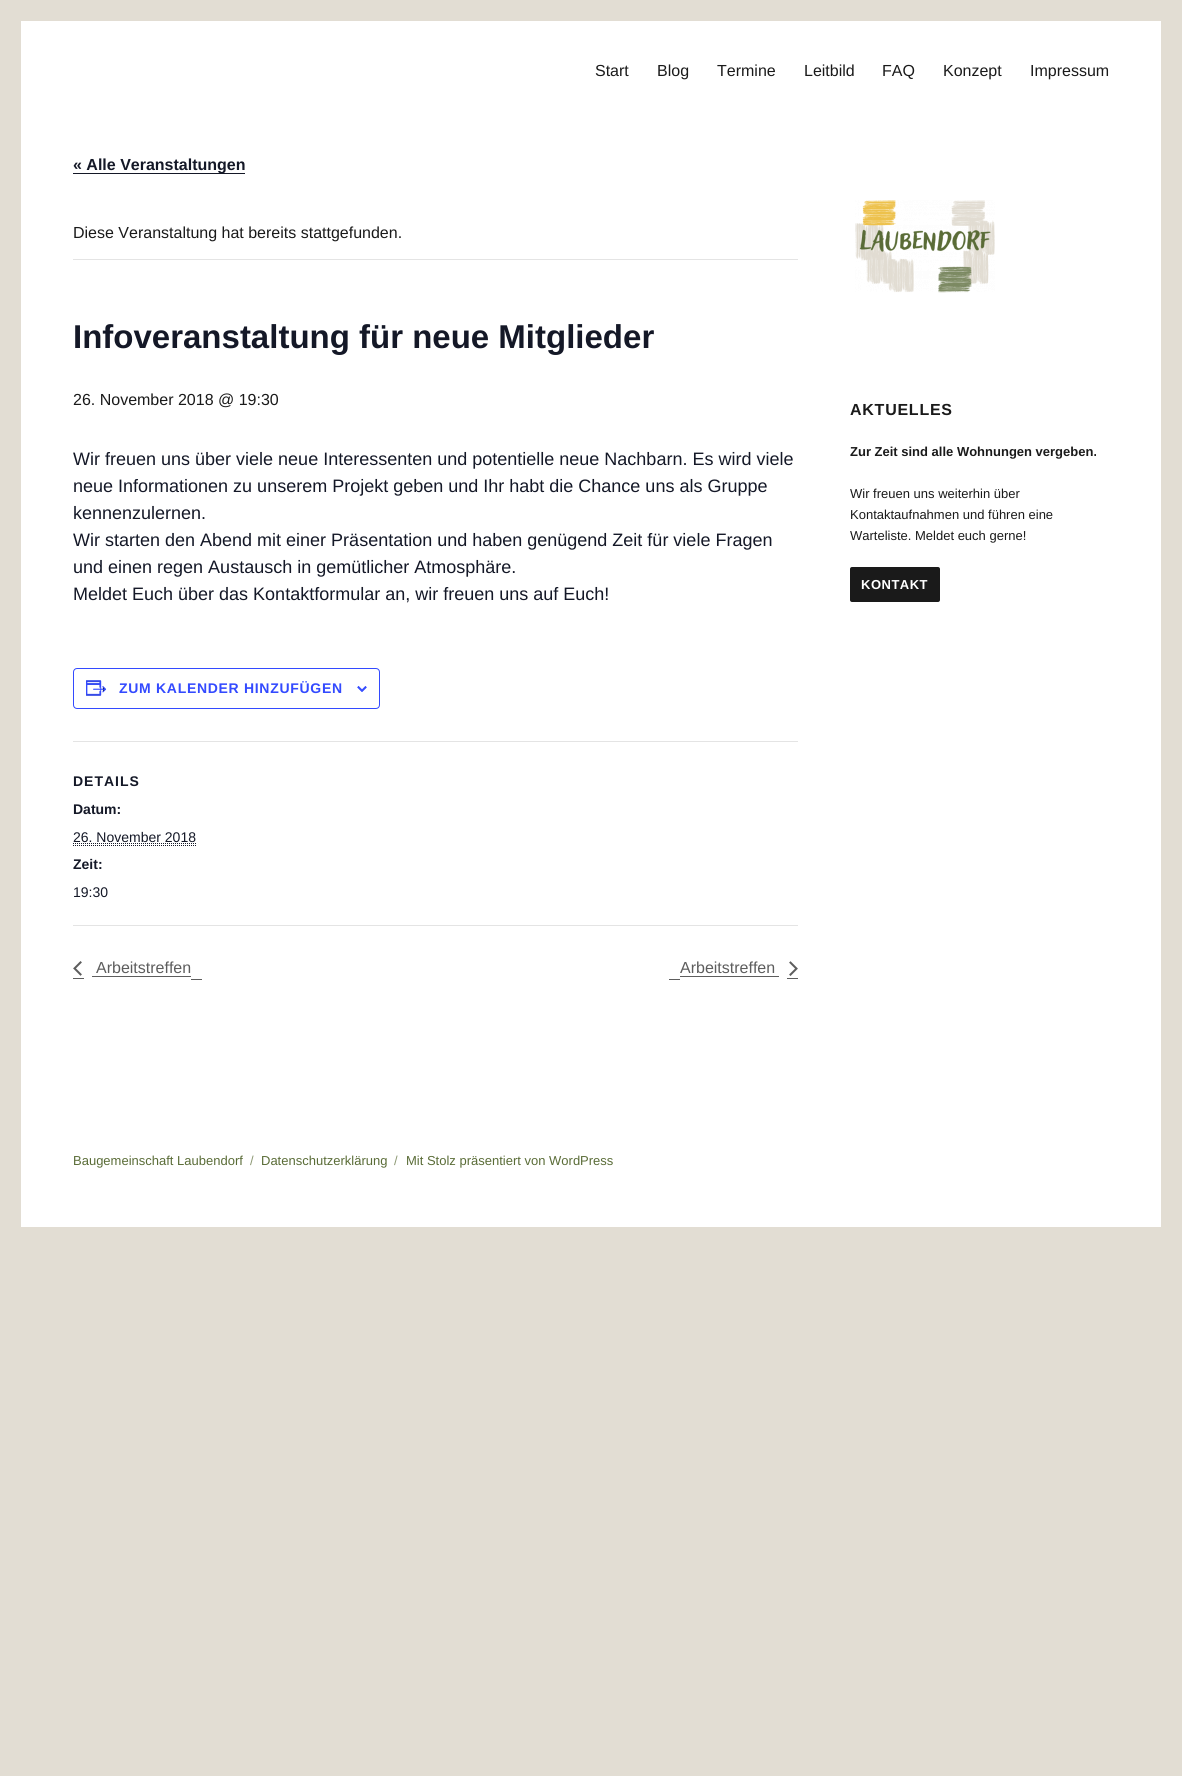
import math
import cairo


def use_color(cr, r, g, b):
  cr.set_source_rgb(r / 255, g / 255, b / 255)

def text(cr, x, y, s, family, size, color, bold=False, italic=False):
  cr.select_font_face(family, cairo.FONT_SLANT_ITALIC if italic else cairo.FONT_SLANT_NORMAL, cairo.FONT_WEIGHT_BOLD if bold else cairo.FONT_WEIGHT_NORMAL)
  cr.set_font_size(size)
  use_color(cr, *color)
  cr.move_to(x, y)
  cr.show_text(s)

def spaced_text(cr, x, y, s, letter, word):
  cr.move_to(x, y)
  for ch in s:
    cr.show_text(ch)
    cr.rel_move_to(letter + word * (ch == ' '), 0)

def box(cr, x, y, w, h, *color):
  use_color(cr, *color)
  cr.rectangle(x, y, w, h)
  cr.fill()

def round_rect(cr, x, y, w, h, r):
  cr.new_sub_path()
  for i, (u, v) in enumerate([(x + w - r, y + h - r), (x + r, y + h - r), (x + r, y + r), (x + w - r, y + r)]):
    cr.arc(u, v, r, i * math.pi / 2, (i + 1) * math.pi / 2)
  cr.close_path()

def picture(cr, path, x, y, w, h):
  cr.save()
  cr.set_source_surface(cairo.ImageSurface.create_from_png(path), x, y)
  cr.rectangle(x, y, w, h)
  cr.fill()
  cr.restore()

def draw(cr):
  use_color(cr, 226, 221, 211)
  cr.paint()
  box(cr, 21, 21, 1140, 1206, 255, 255, 255)
  box(cr, 73, 173, 172, 1, 20, 24, 39)
  box(cr, 73, 259, 725, 1, 228, 228, 228)
  round_rect(cr, 73.5, 668.5, 306, 40, 3.5)
  use_color(cr, 51, 74, 255)
  cr.set_line_width(1)
  cr.stroke()
  picture(cr, "img_01.png", 86, 680, 21, 16)
  picture(cr, "img_02.png", 357, 686, 10, 6)
  box(cr, 73, 741, 725, 1, 228, 228, 228)
  cr.new_path()
  cr.move_to(73, 845.5)
  cr.line_to(196, 845.5)
  use_color(cr, 20, 24, 39)
  cr.set_dash([1, 1])
  cr.stroke()
  cr.new_path()
  cr.move_to(73, 843.5)
  cr.line_to(196, 843.5)
  cr.stroke()
  box(cr, 73, 925, 725, 1, 228, 228, 228)
  box(cr, 73, 978, 11, 1, 93, 93, 93)
  box(cr, 92, 976, 99, 1, 93, 93, 93)
  box(cr, 191, 979, 11, 1, 93, 93, 93)
  picture(cr, "img_03.png", 73, 961, 9, 15)
  box(cr, 669, 979, 11, 1, 93, 93, 93)
  box(cr, 680, 976, 99, 1, 93, 93, 93)
  box(cr, 787, 978, 11, 1, 93, 93, 93)
  picture(cr, "img_04.png", 789, 961, 9, 15)
  picture(cr, "img_05.png", 855, 200, 140, 93)
  use_color(cr, 26, 26, 26)
  round_rect(cr, 850, 567, 90, 35, 2)
  cr.fill()
  text(cr, 595, 76, "Start", "Liberation Sans", 16, (26, 26, 26))
  text(cr, 657, 76, "Blog", "Liberation Sans", 16, (26, 26, 26))
  text(cr, 717, 76, "Termine", "Liberation Sans", 16, (26, 26, 26))
  text(cr, 804, 76, "Leitbild", "Liberation Sans", 16, (26, 26, 26))
  text(cr, 882, 76, "FAQ", "Liberation Sans", 16, (26, 26, 26))
  text(cr, 943, 76, "Konzept", "Liberation Sans", 16, (26, 26, 26))
  text(cr, 1030, 76, "Impressum", "Liberation Sans", 16, (26, 26, 26))
  text(cr, 73, 170, "« Alle Veranstaltungen", "Liberation Sans", 16, (20, 24, 39), bold=True)
  text(cr, 73, 238, "Diese Veranstaltung hat bereits stattgefunden.", "Liberation Sans", 16, (26, 26, 26))
  text(cr, 73, 348, "Infoveranstaltung für neue Mitglieder", "Liberation Sans", 33, (20, 24, 39), bold=True)
  text(cr, 73, 405, "26. November 2018 @ 19:30", "Liberation Sans", 16, (26, 26, 26))
  text(cr, 73, 465, "Wir freuen uns über viele neue Interessenten und potentielle neue Nachbarn. Es wird viele", "Liberation Sans", 18, (20, 24, 39))
  text(cr, 73, 492, "neue Informationen zu unserem Projekt geben und Ihr habt die Chance uns als Gruppe", "Liberation Sans", 18, (20, 24, 39))
  text(cr, 73, 519, "kennenzulernen.", "Liberation Sans", 18, (20, 24, 39))
  text(cr, 73, 546, "Wir starten den Abend mit einer Präsentation und haben genügend Zeit für viele Fragen", "Liberation Sans", 18, (20, 24, 39))
  text(cr, 73, 573, "und einen regen Austausch in gemütlicher Atmosphäre.", "Liberation Sans", 18, (20, 24, 39))
  text(cr, 73, 600, "Meldet Euch über das Kontaktformular an, wir freuen uns auf Euch!", "Liberation Sans", 18, (20, 24, 39))
  cr.select_font_face("Liberation Sans", cairo.FONT_SLANT_NORMAL, cairo.FONT_WEIGHT_BOLD)
  cr.set_font_size(14)
  use_color(cr, 51, 74, 255)
  spaced_text(cr, 119, 693, "ZUM KALENDER HINZUFÜGEN", 0.7, 0)
  use_color(cr, 20, 24, 39)
  spaced_text(cr, 73, 786, "DETAILS", 1, 0)
  text(cr, 73, 814, "Datum:", "Liberation Sans", 14, (20, 24, 39), bold=True)
  text(cr, 73, 842, "26. November 2018", "Liberation Sans", 14, (20, 24, 39))
  text(cr, 73, 869, "Zeit:", "Liberation Sans", 14, (20, 24, 39), bold=True)
  text(cr, 73, 897, "19:30", "Liberation Sans", 14, (20, 24, 39))
  text(cr, 96, 973, "Arbeitstreffen", "Liberation Sans", 16, (93, 93, 93))
  text(cr, 680, 973, "Arbeitstreffen", "Liberation Sans", 16, (93, 93, 93))
  cr.select_font_face("Liberation Sans", cairo.FONT_SLANT_NORMAL, cairo.FONT_WEIGHT_BOLD)
  use_color(cr, 26, 26, 26)
  spaced_text(cr, 850, 415, "AKTUELLES", 0.75, 0)
  text(cr, 850, 456, "Zur Zeit sind alle Wohnungen vergeben.", "Liberation Sans", 13, (26, 26, 26), bold=True)
  text(cr, 850, 498, "Wir freuen uns weiterhin über", "Liberation Sans", 13, (26, 26, 26))
  text(cr, 850, 519, "Kontaktaufnahmen und führen eine", "Liberation Sans", 13, (26, 26, 26))
  text(cr, 850, 540, "Warteliste. Meldet euch gerne!", "Liberation Sans", 13, (26, 26, 26))
  cr.select_font_face("Liberation Sans", cairo.FONT_SLANT_NORMAL, cairo.FONT_WEIGHT_BOLD)
  use_color(cr, 255, 255, 255)
  spaced_text(cr, 861, 589, "KONTAKT", 0.5, 0)
  text(cr, 73, 1165, "Baugemeinschaft Laubendorf", "Liberation Sans", 13, (90, 108, 55))
  text(cr, 250, 1165, "/", "Liberation Sans", 13, (140, 152, 115))
  text(cr, 261, 1165, "Datenschutzerklärung", "Liberation Sans", 13, (90, 108, 55))
  text(cr, 394, 1165, "/", "Liberation Sans", 13, (140, 152, 115))
  text(cr, 406, 1165, "Mit Stolz präsentiert von WordPress", "Liberation Sans", 13, (90, 108, 55))


surface = cairo.ImageSurface(cairo.FORMAT_RGB24, 1182, 1776)
cr = cairo.Context(surface)
options = cairo.FontOptions()
options.set_hint_metrics(cairo.HINT_METRICS_OFF)
options.set_hint_style(cairo.HINT_STYLE_NONE)
cr.set_font_options(options)
cr.set_miter_limit(4)
draw(cr)
surface.write_to_png("out.png")
